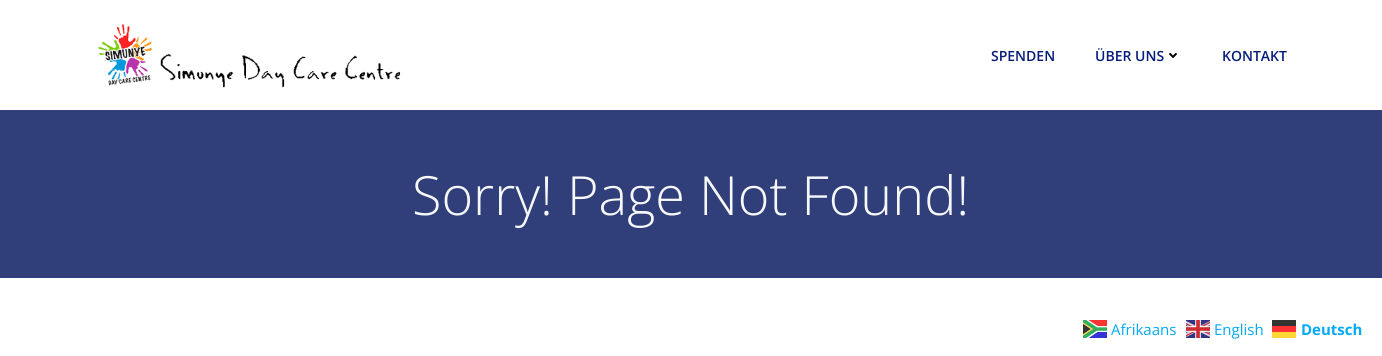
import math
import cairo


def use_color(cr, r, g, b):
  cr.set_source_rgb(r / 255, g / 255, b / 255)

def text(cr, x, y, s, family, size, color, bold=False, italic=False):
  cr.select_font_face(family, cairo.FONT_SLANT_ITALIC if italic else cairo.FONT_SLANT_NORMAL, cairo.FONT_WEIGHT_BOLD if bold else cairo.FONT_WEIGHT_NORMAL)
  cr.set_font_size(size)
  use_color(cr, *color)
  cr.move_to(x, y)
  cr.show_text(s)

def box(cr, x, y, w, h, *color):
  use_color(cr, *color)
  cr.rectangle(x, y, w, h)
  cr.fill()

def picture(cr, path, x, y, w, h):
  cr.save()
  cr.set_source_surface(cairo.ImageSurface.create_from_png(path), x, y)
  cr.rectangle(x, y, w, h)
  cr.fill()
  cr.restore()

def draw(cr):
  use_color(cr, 255, 255, 255)
  cr.paint()
  picture(cr, "img_01.png", 98, 24, 303, 64)
  picture(cr, "img_02.png", 1169, 53, 8, 5)
  box(cr, 0, 110, 1382, 168, 48, 62, 122)
  picture(cr, "img_03.png", 1083, 320, 24, 18)
  picture(cr, "img_04.png", 1186, 320, 24, 18)
  box(cr, 1272, 332, 24, 6, 255, 214, 51)
  box(cr, 1272, 320, 24, 6, 51, 51, 51)
  box(cr, 1272, 326, 24, 6, 255, 51, 51)
  text(cr, 991, 61, "SPENDEN", "Open Sans SemiBold", 14, (7, 29, 122))
  text(cr, 1095, 61, "ÜBER UNS", "Open Sans SemiBold", 14, (7, 29, 122))
  text(cr, 1222, 61, "KONTAKT", "Open Sans SemiBold", 14, (7, 29, 122))
  text(cr, 412, 215, "Sorry! Page Not Found!", "Open Sans Light", 54, (246, 248, 250))
  text(cr, 1111, 335, "Afrikaans", "Open Sans", 15, (3, 169, 244))
  text(cr, 1214, 335, "English", "Open Sans", 15, (3, 169, 244))
  text(cr, 1301, 335, "Deutsch", "Open Sans", 15, (3, 169, 244), bold=True)


surface = cairo.ImageSurface(cairo.FORMAT_RGB24, 1382, 356)
cr = cairo.Context(surface)
options = cairo.FontOptions()
options.set_hint_metrics(cairo.HINT_METRICS_OFF)
options.set_hint_style(cairo.HINT_STYLE_NONE)
cr.set_font_options(options)
cr.set_miter_limit(4)
draw(cr)
surface.write_to_png("out.png")
